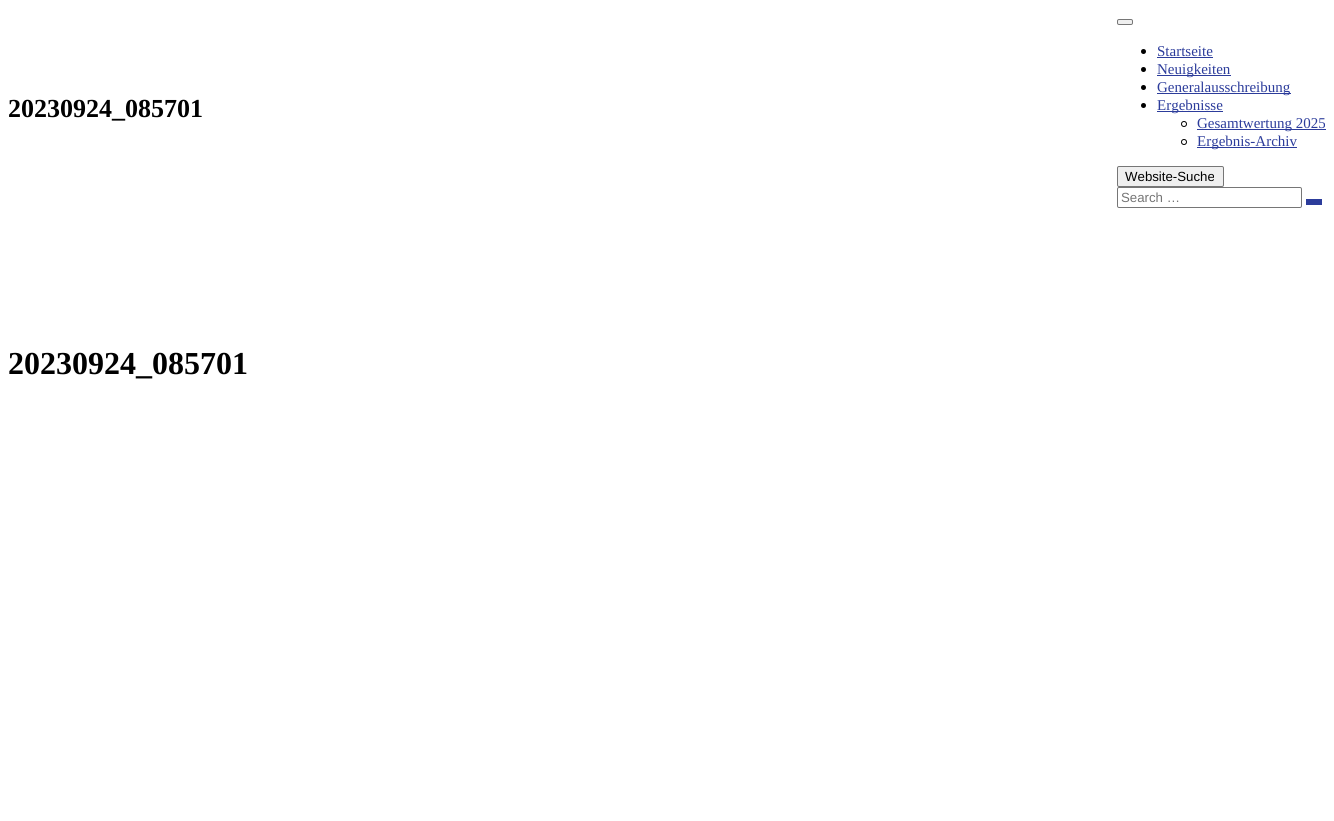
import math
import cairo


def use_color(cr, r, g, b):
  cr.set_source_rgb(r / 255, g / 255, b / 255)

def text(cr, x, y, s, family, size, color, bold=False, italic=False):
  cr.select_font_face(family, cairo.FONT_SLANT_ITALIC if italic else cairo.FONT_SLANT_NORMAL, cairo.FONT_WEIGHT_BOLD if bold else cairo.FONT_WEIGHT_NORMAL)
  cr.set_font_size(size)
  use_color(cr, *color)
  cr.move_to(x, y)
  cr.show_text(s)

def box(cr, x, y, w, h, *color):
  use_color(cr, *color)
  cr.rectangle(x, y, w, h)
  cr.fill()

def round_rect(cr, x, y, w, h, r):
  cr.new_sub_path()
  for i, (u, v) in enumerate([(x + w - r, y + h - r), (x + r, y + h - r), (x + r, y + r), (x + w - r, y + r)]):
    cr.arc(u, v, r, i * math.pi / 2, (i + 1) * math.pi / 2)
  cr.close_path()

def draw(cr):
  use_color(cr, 255, 255, 255)
  cr.paint()
  use_color(cr, 239, 239, 239)
  round_rect(cr, 1117.5, 19.5, 15, 5, 1.5)
  cr.fill_preserve()
  use_color(cr, 118, 118, 118)
  cr.set_line_width(1)
  cr.stroke()
  use_color(cr, 0, 0, 0)
  cr.arc(1143.5, 51.5, 2.5, 0, 2 * math.pi)
  cr.fill()
  box(cr, 1157, 57, 56, 1, 44, 60, 155)
  use_color(cr, 0, 0, 0)
  cr.arc(1143.5, 69.5, 2.5, 0, 2 * math.pi)
  cr.fill()
  box(cr, 1157, 75, 74, 1, 44, 60, 155)
  use_color(cr, 0, 0, 0)
  cr.arc(1143.5, 87.5, 2.5, 0, 2 * math.pi)
  cr.fill()
  box(cr, 1157, 93, 134, 1, 44, 60, 155)
  use_color(cr, 0, 0, 0)
  cr.arc(1143.5, 105.5, 2.5, 0, 2 * math.pi)
  cr.fill()
  box(cr, 1157, 111, 66, 1, 44, 60, 155)
  cr.arc(1184, 124, 2.5, 0, 2 * math.pi)
  use_color(cr, 0, 0, 0)
  cr.stroke()
  box(cr, 1197, 129, 129, 1, 44, 60, 155)
  cr.arc(1184, 142, 2.5, 0, 2 * math.pi)
  use_color(cr, 0, 0, 0)
  cr.stroke()
  box(cr, 1197, 147, 100, 1, 44, 60, 155)
  use_color(cr, 239, 239, 239)
  round_rect(cr, 1117.5, 166.5, 106, 20, 1.5)
  cr.fill_preserve()
  use_color(cr, 118, 118, 118)
  cr.stroke()
  round_rect(cr, 1117.5, 187.5, 184, 20, 1.5)
  cr.stroke()
  box(cr, 1306, 199, 16, 6, 44, 60, 155)
  text(cr, 8, 117, "20230924_085701", "Liberation Serif", 26, (0, 0, 0), bold=True)
  text(cr, 8, 374, "20230924_085701", "Liberation Serif", 32, (0, 0, 0), bold=True)
  text(cr, 1157, 56, "Startseite", "Liberation Serif", 15, (44, 60, 155))
  text(cr, 1157, 74, "Neuigkeiten", "Liberation Serif", 15, (44, 60, 155))
  text(cr, 1157, 92, "Generalausschreibung", "Liberation Serif", 15, (44, 60, 155))
  text(cr, 1157, 110, "Ergebnisse", "Liberation Serif", 15, (44, 60, 155))
  text(cr, 1197, 128, "Gesamtwertung 2025", "Liberation Serif", 15, (44, 60, 155))
  text(cr, 1197, 146, "Ergebnis-Archiv", "Liberation Serif", 15, (44, 60, 155))
  text(cr, 1125, 181, "Website-Suche", "Liberation Sans", 13.25, (0, 0, 0))
  text(cr, 1121, 202, "Search …", "Liberation Sans", 13.25, (117, 117, 117))


surface = cairo.ImageSurface(cairo.FORMAT_RGB24, 1334, 821)
cr = cairo.Context(surface)
options = cairo.FontOptions()
options.set_hint_metrics(cairo.HINT_METRICS_OFF)
options.set_hint_style(cairo.HINT_STYLE_NONE)
cr.set_font_options(options)
cr.set_miter_limit(4)
draw(cr)
surface.write_to_png("out.png")
